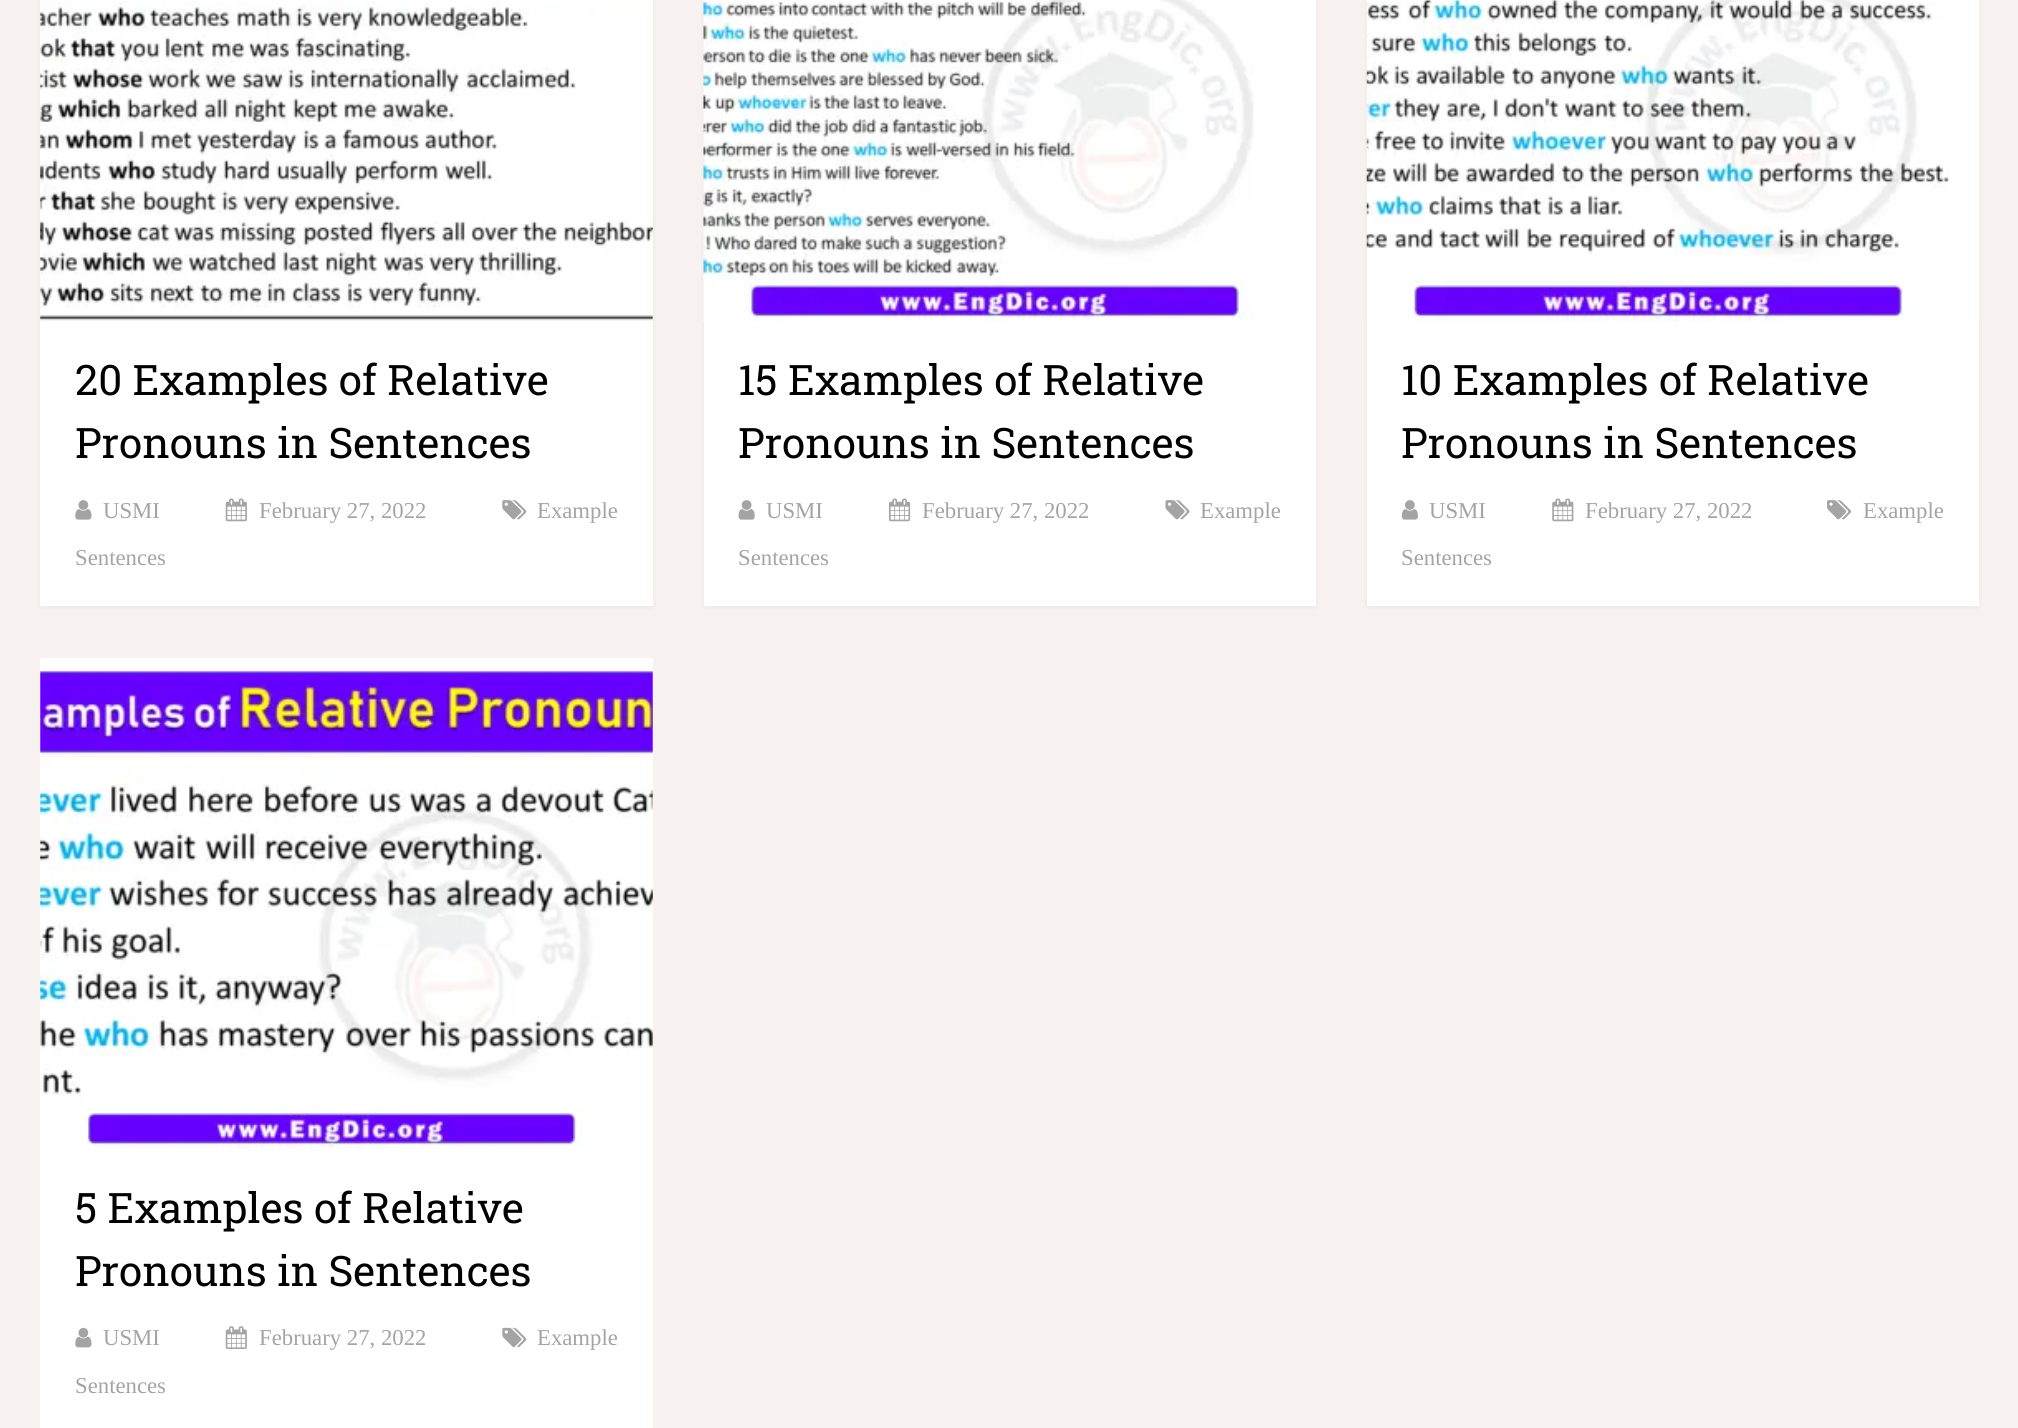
import math
import cairo


def use_color(cr, r, g, b):
  cr.set_source_rgb(r / 255, g / 255, b / 255)

def text(cr, x, y, s, family, size, color, bold=False, italic=False):
  cr.select_font_face(family, cairo.FONT_SLANT_ITALIC if italic else cairo.FONT_SLANT_NORMAL, cairo.FONT_WEIGHT_BOLD if bold else cairo.FONT_WEIGHT_NORMAL)
  cr.set_font_size(size)
  use_color(cr, *color)
  cr.move_to(x, y)
  cr.show_text(s)

def box(cr, x, y, w, h, *color):
  use_color(cr, *color)
  cr.rectangle(x, y, w, h)
  cr.fill()

def round_rect(cr, x, y, w, h, r):
  cr.new_sub_path()
  for i, (u, v) in enumerate([(x + w - r, y + h - r), (x + r, y + h - r), (x + r, y + r), (x + w - r, y + r)]):
    cr.arc(u, v, r, i * math.pi / 2, (i + 1) * math.pi / 2)
  cr.close_path()

def shadow(cr, x, y, w, h, r, blur, alpha):
  cr.push_group_with_content(cairo.CONTENT_ALPHA)
  cr.set_operator(cairo.OPERATOR_SOURCE)
  for i in range(15, -16, -2):
    e = blur * i / 6
    if min(w, h) + 2 * e > 0:
      cr.set_source_rgba(0, 0, 0, alpha * math.erfc((i - 1) / 8.5) / 2)
      round_rect(cr, x - e, y - e, w + 2 * e, h + 2 * e, max(0, min(r + e + blur * .6, min(w, h) / 2 + e)))
      cr.fill()
  cr.mask(cr.pop_group())

def picture(cr, path, x, y, w, h):
  cr.save()
  cr.set_source_surface(cairo.ImageSurface.create_from_png(path), x, y)
  cr.rectangle(x, y, w, h)
  cr.fill()
  cr.restore()

def draw(cr):
  use_color(cr, 247, 241, 239)
  cr.paint()
  use_color(cr, 0, 0, 0)
  shadow(cr, 40, -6, 613, 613, 0, 2, 0.05)
  box(cr, 40, 0, 613, 606, 255, 255, 255)
  picture(cr, "img_01.png", 40, 2, 613, 319)
  picture(cr, "img_02.png", 502, 500, 25, 20)
  picture(cr, "img_03.png", 75, 500, 17, 20)
  picture(cr, "img_04.png", 225, 498, 22, 24)
  use_color(cr, 0, 0, 0)
  shadow(cr, 704, -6, 612, 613, 0, 2, 0.05)
  box(cr, 704, 0, 612, 606, 255, 255, 255)
  picture(cr, "img_05.png", 703, 0, 551, 322)
  picture(cr, "img_06.png", 1165, 500, 25, 20)
  picture(cr, "img_07.png", 738, 500, 17, 20)
  picture(cr, "img_08.png", 889, 498, 22, 24)
  use_color(cr, 0, 0, 0)
  shadow(cr, 1367, -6, 612, 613, 0, 2, 0.05)
  box(cr, 1367, 322, 612, 284, 255, 255, 255)
  picture(cr, "img_09.png", 1366, 0, 614, 322)
  picture(cr, "img_10.png", 1827, 500, 25, 20)
  picture(cr, "img_11.png", 1401, 500, 17, 20)
  picture(cr, "img_12.png", 1552, 498, 22, 24)
  box(cr, 40, 658, 613, 770, 255, 255, 255)
  picture(cr, "img_13.png", 40, 669, 613, 481)
  picture(cr, "img_14.png", 502, 1327, 25, 21)
  picture(cr, "img_15.png", 75, 1327, 17, 21)
  picture(cr, "img_16.png", 225, 1326, 22, 23)
  text(cr, 75, 395, "20 Examples of Relative", "Roboto Slab", 42, (0, 0, 0))
  text(cr, 75, 458, "Pronouns in Sentences", "Roboto Slab", 42, (0, 0, 0))
  text(cr, 537, 518, "Example", "Liberation Serif", 22.75, (164, 164, 164))
  text(cr, 75, 565, "Sentences", "Liberation Serif", 22.75, (164, 164, 164))
  text(cr, 103, 518, "USMI", "Liberation Serif", 22.75, (164, 164, 164))
  text(cr, 259, 518, "February 27, 2022", "Liberation Serif", 22.75, (164, 164, 164))
  text(cr, 738, 395, "15 Examples of Relative", "Roboto Slab", 42, (0, 0, 0))
  text(cr, 738, 458, "Pronouns in Sentences", "Roboto Slab", 42, (0, 0, 0))
  text(cr, 1200, 518, "Example", "Liberation Serif", 22.75, (164, 164, 164))
  text(cr, 738, 565, "Sentences", "Liberation Serif", 22.75, (164, 164, 164))
  text(cr, 766, 518, "USMI", "Liberation Serif", 22.75, (164, 164, 164))
  text(cr, 922, 518, "February 27, 2022", "Liberation Serif", 22.75, (164, 164, 164))
  text(cr, 1401, 395, "10 Examples of Relative", "Roboto Slab", 42, (0, 0, 0))
  text(cr, 1401, 458, "Pronouns in Sentences", "Roboto Slab", 42, (0, 0, 0))
  text(cr, 1863, 518, "Example", "Liberation Serif", 22.75, (164, 164, 164))
  text(cr, 1401, 565, "Sentences", "Liberation Serif", 22.75, (164, 164, 164))
  text(cr, 1429, 518, "USMI", "Liberation Serif", 22.75, (164, 164, 164))
  text(cr, 1585, 518, "February 27, 2022", "Liberation Serif", 22.75, (164, 164, 164))
  text(cr, 75, 1223, "5 Examples of Relative", "Roboto Slab", 42, (0, 0, 0))
  text(cr, 75, 1286, "Pronouns in Sentences", "Roboto Slab", 42, (0, 0, 0))
  text(cr, 537, 1345, "Example", "Liberation Serif", 22.75, (164, 164, 164))
  text(cr, 75, 1393, "Sentences", "Liberation Serif", 22.75, (164, 164, 164))
  text(cr, 103, 1345, "USMI", "Liberation Serif", 22.75, (164, 164, 164))
  text(cr, 259, 1345, "February 27, 2022", "Liberation Serif", 22.75, (164, 164, 164))


surface = cairo.ImageSurface(cairo.FORMAT_RGB24, 2018, 1428)
cr = cairo.Context(surface)
options = cairo.FontOptions()
options.set_hint_metrics(cairo.HINT_METRICS_OFF)
options.set_hint_style(cairo.HINT_STYLE_NONE)
cr.set_font_options(options)
cr.set_miter_limit(4)
draw(cr)
surface.write_to_png("out.png")
